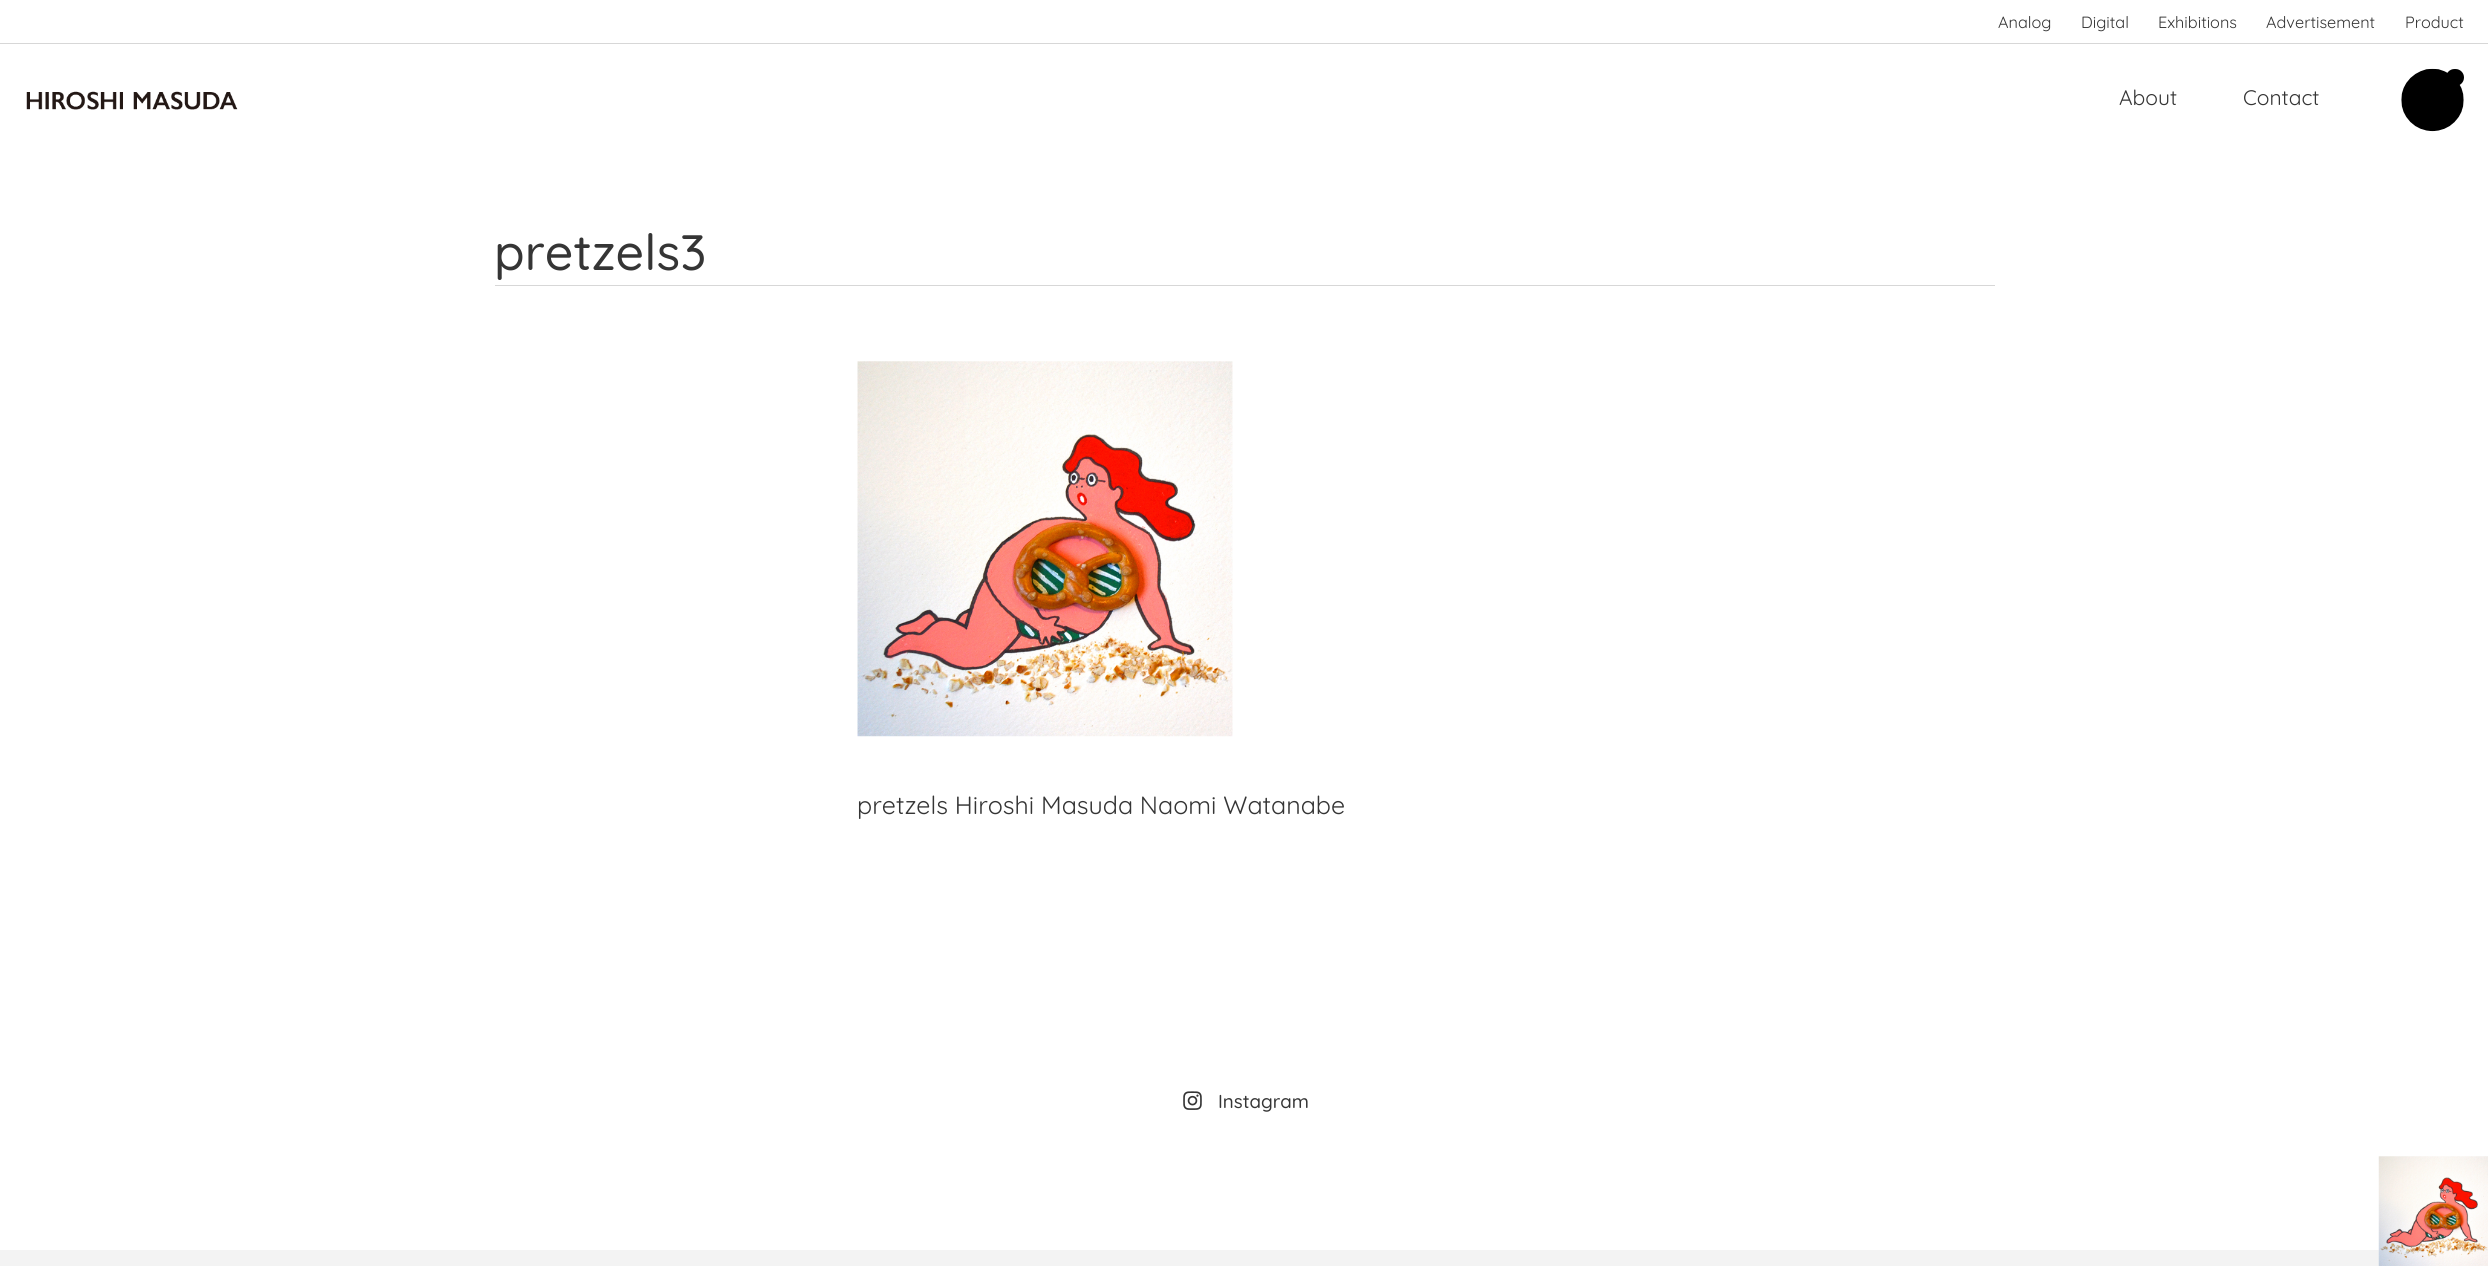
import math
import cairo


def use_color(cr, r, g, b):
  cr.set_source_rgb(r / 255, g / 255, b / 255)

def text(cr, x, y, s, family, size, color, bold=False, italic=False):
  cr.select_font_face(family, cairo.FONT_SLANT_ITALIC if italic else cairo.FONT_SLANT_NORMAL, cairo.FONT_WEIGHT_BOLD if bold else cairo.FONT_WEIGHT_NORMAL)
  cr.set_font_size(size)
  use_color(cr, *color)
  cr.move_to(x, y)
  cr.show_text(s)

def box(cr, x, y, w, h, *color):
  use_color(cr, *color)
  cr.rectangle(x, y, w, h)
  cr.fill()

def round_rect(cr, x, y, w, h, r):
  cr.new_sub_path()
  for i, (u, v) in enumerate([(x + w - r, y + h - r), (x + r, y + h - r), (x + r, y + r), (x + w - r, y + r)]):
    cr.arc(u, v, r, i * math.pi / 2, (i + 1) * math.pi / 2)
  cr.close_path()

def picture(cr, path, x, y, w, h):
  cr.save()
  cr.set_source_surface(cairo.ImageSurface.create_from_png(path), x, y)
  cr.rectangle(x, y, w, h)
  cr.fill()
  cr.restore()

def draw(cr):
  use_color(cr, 243, 243, 243)
  cr.paint()
  box(cr, 0, 0, 2488, 1250, 255, 255, 255)
  box(cr, 0, 43, 2488, 1, 215, 215, 215)
  picture(cr, "img_01.png", 26, 91, 212, 19)
  picture(cr, "img_02.png", 2401, 68, 63, 64)
  use_color(cr, 0, 0, 0)
  round_rect(cr, 2446, 69, 18, 17, 8.5)
  cr.fill()
  box(cr, 495, 285, 1500, 1, 215, 215, 215)
  picture(cr, "img_03.png", 857, 361, 376, 376)
  picture(cr, "img_04.png", 1183, 1091, 19, 19)
  picture(cr, "img_05.png", 2378, 1156, 110, 110)
  text(cr, 1998, 28, "Analog", "Quicksand", 16.25, (53, 53, 53))
  text(cr, 2081, 28, "Digital", "Quicksand", 16.25, (53, 53, 53))
  text(cr, 2158, 28, "Exhibitions", "Quicksand", 16.25, (53, 53, 53))
  text(cr, 2266, 28, "Advertisement", "Quicksand", 16.25, (53, 53, 53))
  text(cr, 2405, 28, "Product", "Quicksand", 16.25, (53, 53, 53))
  text(cr, 2119, 105, "About", "Quicksand", 21, (53, 53, 53))
  text(cr, 2243, 105, "Contact", "Quicksand", 21, (53, 53, 53))
  text(cr, 494, 270, "pretzels3", "Quicksand Medium", 50, (53, 53, 53))
  text(cr, 857, 814, "pretzels Hiroshi Masuda Naomi Watanabe", "Quicksand", 25, (53, 53, 53))
  text(cr, 1218, 1108, "Instagram", "Quicksand Medium", 18.75, (53, 53, 53))


surface = cairo.ImageSurface(cairo.FORMAT_RGB24, 2488, 1266)
cr = cairo.Context(surface)
options = cairo.FontOptions()
options.set_hint_metrics(cairo.HINT_METRICS_OFF)
options.set_hint_style(cairo.HINT_STYLE_NONE)
cr.set_font_options(options)
cr.set_miter_limit(4)
draw(cr)
surface.write_to_png("out.png")
